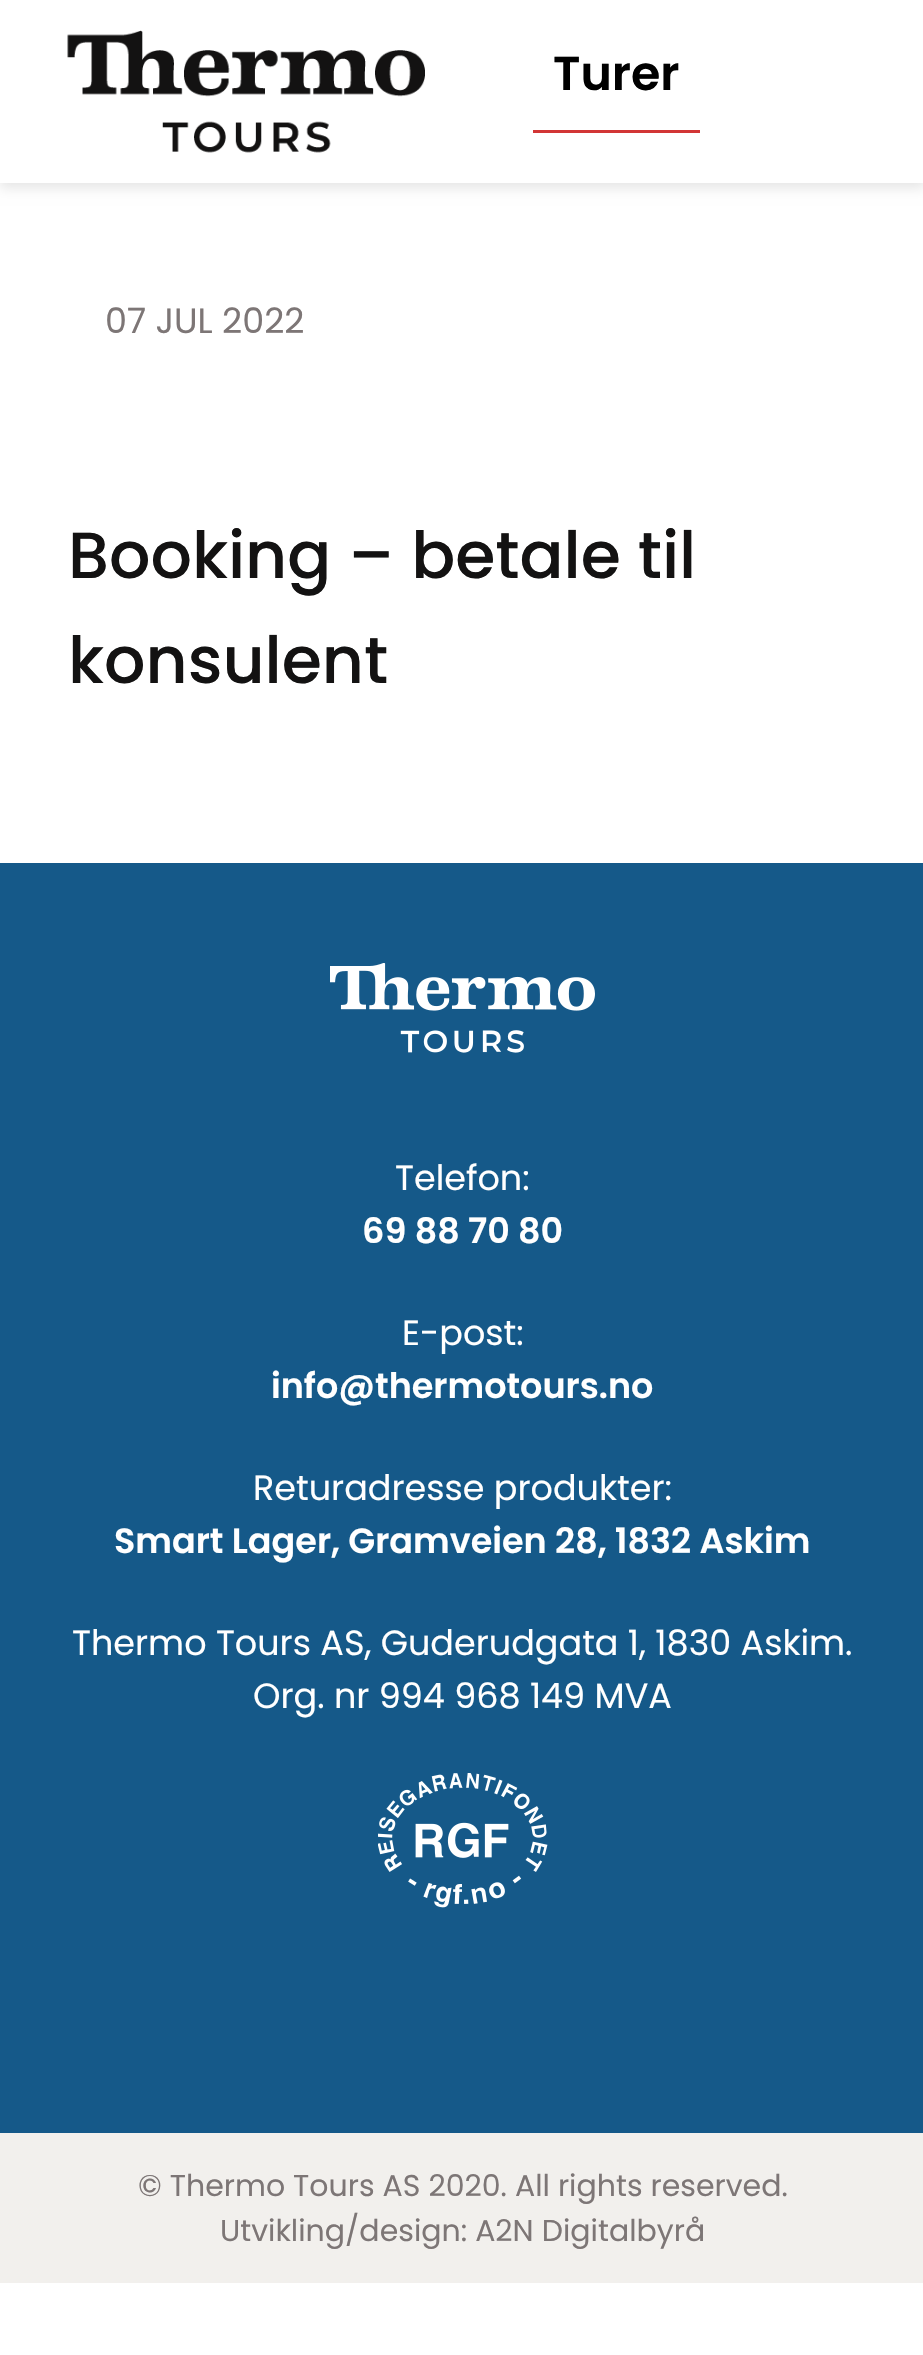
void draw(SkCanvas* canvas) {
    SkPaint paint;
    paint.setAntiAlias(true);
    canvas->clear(0xFFFFFFFF);
    paint.setColor(0x1A000000);
    paint.setMaskFilter(SkMaskFilter::MakeBlur(kNormal_SkBlurStyle, 6));
    canvas->drawRect(SkRect::MakeXYWH(0, 5, 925, 183), paint);
    paint.setMaskFilter(nullptr);
    paint.setColor(0xFFFFFFFF);
    canvas->drawRect(SkRect::MakeXYWH(0, 0, 923, 183), paint);
    canvas->drawImageRect(SkImages::DeferredFromEncodedData(SkData::MakeFromFileName("img1.png")), SkRect::MakeXYWH(67, 30, 358, 123), SkSamplingOptions());
    paint.setColor(0xFFD23535);
    canvas->drawRect(SkRect::MakeXYWH(533, 130, 167, 3), paint);
    SkFont font1(fontMgr->matchFamilyStyle("Poppins", SkFontStyle(600, SkFontStyle::kNormal_Width, SkFontStyle::kUpright_Slant)), 47.5f);
    font1.setSubpixel(true);
    paint.setColor(0xFF000000);
    canvas->drawString("Turer", 553, 90, font1, paint);
    SkFont font2(fontMgr->matchFamilyStyle("Poppins", SkFontStyle::Normal()), 35);
    font2.setSubpixel(true);
    paint.setColor(0xFF7D7676);
    canvas->drawString("07 JUL 2022", 105, 333, font2, paint);
    SkFont font3(fontMgr->matchFamilyStyle("Poppins", SkFontStyle(500, SkFontStyle::kNormal_Width, SkFontStyle::kUpright_Slant)), 65);
    font3.setSubpixel(true);
    paint.setColor(0xFF131212);
    canvas->drawString("Booking – betale til", 68, 578, font3, paint);
    canvas->drawString("konsulent", 68, 683, font3, paint);
    paint.setColor(0xFF155989);
    canvas->drawRect(SkRect::MakeXYWH(0, 863, 923, 1270), paint);
    canvas->drawImageRect(SkImages::DeferredFromEncodedData(SkData::MakeFromFileName("img2.png")), SkRect::MakeXYWH(330, 963, 265, 90), SkSamplingOptions());
    paint.setColor(0xFFFFFFFF);
    canvas->drawString("Telefon:", 395, 1190, font2, paint);
    SkFont font4(fontMgr->matchFamilyStyle("Poppins", SkFontStyle(600, SkFontStyle::kNormal_Width, SkFontStyle::kUpright_Slant)), 35);
    font4.setSubpixel(true);
    canvas->drawString("69 88 70 80", 362, 1243, font4, paint);
    canvas->drawString("E-post:", 402, 1345, font2, paint);
    canvas->drawString("info@thermotours.no", 271, 1398, font4, paint);
    canvas->drawString("Returadresse produkter:", 253, 1500, font2, paint);
    canvas->drawString("Smart Lager, Gramveien 28, 1832 Askim", 114, 1553, font4, paint);
    canvas->drawString("Thermo Tours AS, Guderudgata 1, 1830 Askim.", 72, 1655, font2, paint);
    canvas->drawString("Org. nr 994 968 149 MVA", 253, 1708, font2, paint);
    canvas->drawImageRect(SkImages::DeferredFromEncodedData(SkData::MakeFromFileName("img3.png")), SkRect::MakeXYWH(378, 1773, 170, 135), SkSamplingOptions());
    paint.setColor(0xFFF2F0ED);
    canvas->drawRect(SkRect::MakeXYWH(0, 2133, 923, 150), paint);
    SkFont font5(fontMgr->matchFamilyStyle("Poppins", SkFontStyle::Normal()), 30);
    font5.setSubpixel(true);
    paint.setColor(0xFF7D7676);
    canvas->drawString("© Thermo Tours AS 2020. All rights reserved.", 138, 2196, font5, paint);
    canvas->drawString("Utvikling/design: A2N Digitalbyrå", 220, 2241, font5, paint);
}
